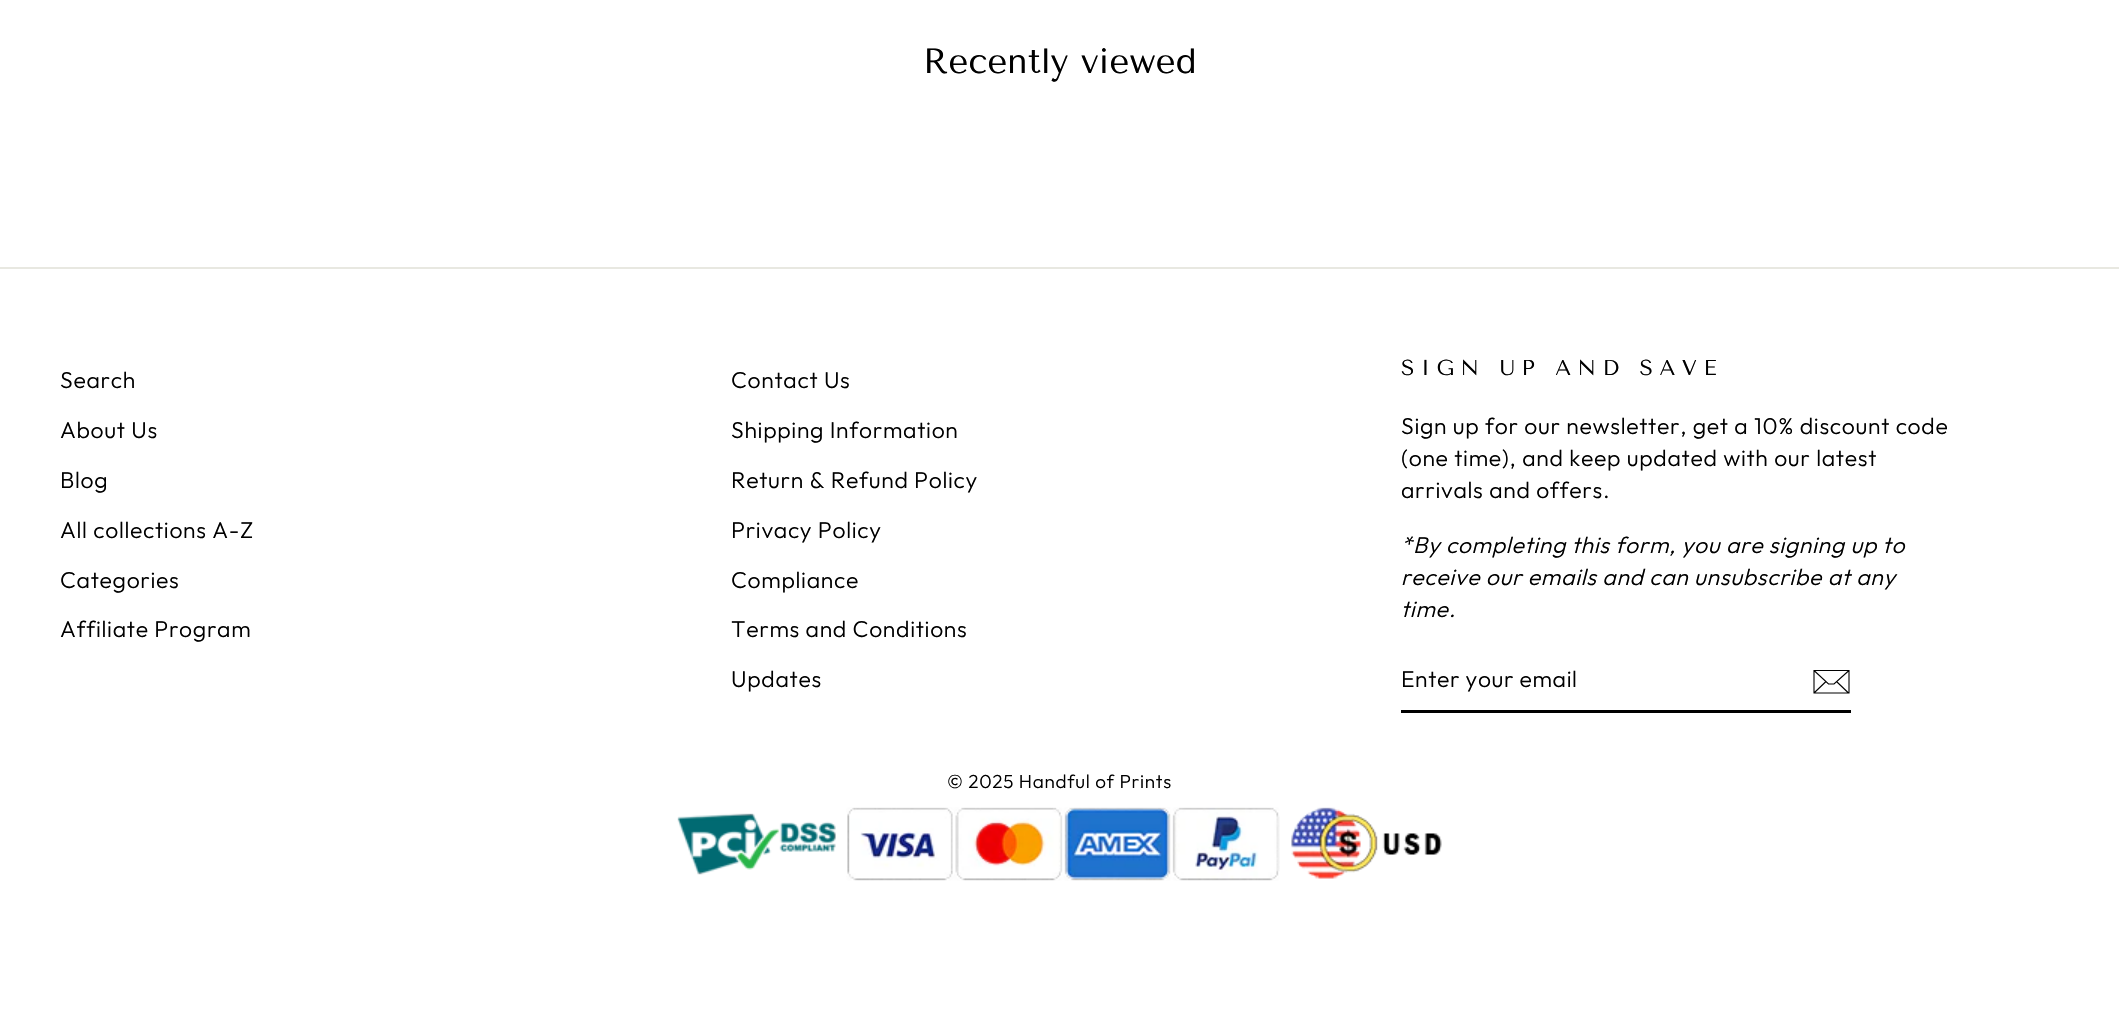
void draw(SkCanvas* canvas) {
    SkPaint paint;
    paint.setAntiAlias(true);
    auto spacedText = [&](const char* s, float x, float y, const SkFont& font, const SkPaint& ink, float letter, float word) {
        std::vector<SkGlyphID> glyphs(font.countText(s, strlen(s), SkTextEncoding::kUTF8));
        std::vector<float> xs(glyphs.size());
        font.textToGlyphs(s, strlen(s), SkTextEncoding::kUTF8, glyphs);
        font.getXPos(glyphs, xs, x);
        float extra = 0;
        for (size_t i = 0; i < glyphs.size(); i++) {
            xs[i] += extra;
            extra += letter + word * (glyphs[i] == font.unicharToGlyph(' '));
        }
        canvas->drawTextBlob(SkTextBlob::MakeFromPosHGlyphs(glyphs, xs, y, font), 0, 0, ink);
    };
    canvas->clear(0xFFFFFFFF);
    SkFont font1(fontMgr->matchFamilyStyle("Tenor Sans", SkFontStyle::Normal()), 35);
    font1.setSubpixel(true);
    paint.setColor(0xFF000000);
    canvas->drawString("Recently viewed", 923, 73, font1, paint);
    paint.setColor(0xFFE8E8E1);
    canvas->drawRect(SkRect::MakeXYWH(0, 267, 2119, 2), paint);
    SkFont font2(fontMgr->matchFamilyStyle("Outfit", SkFontStyle(300, SkFontStyle::kNormal_Width, SkFontStyle::kUpright_Slant)), 22.95f);
    font2.setSubpixel(true);
    paint.setColor(0xFF000000);
    spacedText("Search", 60, 388, font2, paint, 0.68f, 0);
    spacedText("About Us", 60, 438, font2, paint, 0.68f, 0);
    spacedText("Blog", 60, 488, font2, paint, 0.68f, 0);
    spacedText("All collections A-Z", 60, 538, font2, paint, 0.68f, 0);
    spacedText("Categories", 60, 588, font2, paint, 0.68f, 0);
    spacedText("Affiliate Program", 60, 637, font2, paint, 0.68f, 0);
    spacedText("Contact Us", 731, 388, font2, paint, 0.68f, 0);
    spacedText("Shipping Information", 731, 438, font2, paint, 0.68f, 0);
    spacedText("Return & Refund Policy", 731, 488, font2, paint, 0.68f, 0);
    spacedText("Privacy Policy", 731, 538, font2, paint, 0.68f, 0);
    spacedText("Compliance", 731, 588, font2, paint, 0.68f, 0);
    spacedText("Terms and Conditions", 731, 637, font2, paint, 0.68f, 0);
    spacedText("Updates", 731, 687, font2, paint, 0.68f, 0);
    SkFont font3(fontMgr->matchFamilyStyle("Tenor Sans", SkFontStyle::Normal()), 21.6f);
    font3.setSubpixel(true);
    spacedText("SIGN UP AND SAVE", 1401, 375, font3, paint, 6.5f, 0);
    spacedText("Sign up for our newsletter, get a 10% discount code", 1401, 434, font2, paint, 0.68f, 0);
    spacedText("(one time), and keep updated with our latest", 1401, 466, font2, paint, 0.68f, 0);
    spacedText("arrivals and offers.", 1401, 498, font2, paint, 0.68f, 0);
    SkFont font4(fontMgr->matchFamilyStyle("Outfit", SkFontStyle(300, SkFontStyle::kNormal_Width, SkFontStyle::kItalic_Slant)), 22.95f);
    font4.setSubpixel(true);
    spacedText("*By completing this form, you are signing up to", 1401, 553, font4, paint, 0.68f, 0);
    spacedText("receive our emails and can unsubscribe at any", 1401, 585, font4, paint, 0.68f, 0);
    spacedText("time.", 1401, 617, font4, paint, 0.68f, 0);
    canvas->drawRect(SkRect::MakeXYWH(1401, 710, 450, 3), paint);
    spacedText("Enter your email", 1401, 687, font2, paint, 0.6f, 0);
    paint.setStyle(SkPaint::kStroke_Style);
    paint.setStrokeWidth(1.1f);
    canvas->drawPath(SkPathBuilder().moveTo(1849, 693).lineTo(1814, 693).lineTo(1814, 670.5f).lineTo(1849, 670.5f).close().moveTo(1814, 670.5f).lineTo(1828.5f, 684).lineTo(1834, 684).lineTo(1849, 670.5f).moveTo(1826, 681.5f).lineTo(1814.5f, 692.5f).moveTo(1848.5f, 693).lineTo(1836.5f, 681.5f).detach(), paint);
    SkFont font5(fontMgr->matchFamilyStyle("Outfit", SkFontStyle(300, SkFontStyle::kNormal_Width, SkFontStyle::kUpright_Slant)), 18.9f);
    font5.setSubpixel(true);
    paint.setStyle(SkPaint::kFill_Style);
    spacedText("© 2025 Handful of Prints", 947, 788, font5, paint, 0.68f, 0);
    canvas->drawImageRect(SkImages::DeferredFromEncodedData(SkData::MakeFromFileName("img1.png")), SkRect::MakeXYWH(677, 807, 765, 74), SkSamplingOptions());
}
